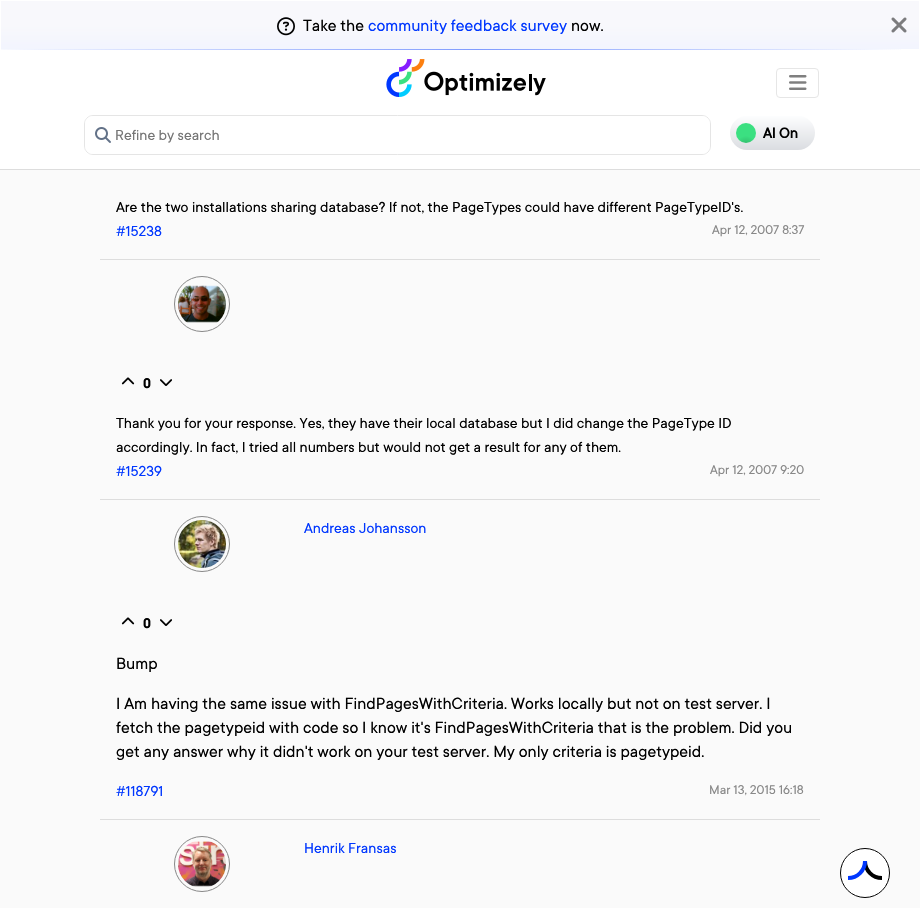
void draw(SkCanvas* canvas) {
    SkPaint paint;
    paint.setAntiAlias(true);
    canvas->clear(0xFFFAFAFA);
    paint.setColor(0xFFFFFFFF);
    canvas->drawRect(SkRect::MakeXYWH(0, 0, 920, 169), paint);
    canvas->drawImageRect(SkImages::DeferredFromEncodedData(SkData::MakeFromFileName("img1.png")), SkRect::MakeXYWH(1, 49, 900, 1), SkSamplingOptions());
    {
        const SkColor colors[] = {0xFFF8F8FC, 0xFFF0F3FF};
        const float stops[] = {0.42f, 1};
        const SkPoint ends[] = {{460, 0.9f}, {460, 59}};
        paint.setShader(SkGradientShader::MakeLinear(ends, colors, stops, 2, SkTileMode::kClamp));
        paint.setAlpha(255);
    }
    canvas->drawRect(SkRect::MakeXYWH(1, 1, 918, 48), paint);
    canvas->drawImageRect(SkImages::DeferredFromEncodedData(SkData::MakeFromFileName("img2.png")), SkRect::MakeXYWH(277, 17, 18, 19), SkSamplingOptions());
    SkFont font1(fontMgr->matchFamilyStyle("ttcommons", SkFontStyle::Normal()), 18);
    font1.setSubpixel(true);
    paint.setShader(nullptr);
    paint.setColor(0xFF000000);
    canvas->drawString("Take the", 303, 31, font1, paint);
    paint.setColor(0xFF0037FF);
    canvas->drawString("community feedback survey", 368, 31, font1, paint);
    paint.setColor(0xFF000000);
    canvas->drawString("now.", 571, 31, font1, paint);
    canvas->drawImageRect(SkImages::DeferredFromEncodedData(SkData::MakeFromFileName("img3.png")), SkRect::MakeXYWH(891, 17, 16, 16), SkSamplingOptions());
    paint.setColor(0xFFDDDDDD);
    canvas->drawRect(SkRect::MakeXYWH(0, 169, 920, 1), paint);
    canvas->drawImageRect(SkImages::DeferredFromEncodedData(SkData::MakeFromFileName("img4.png")), SkRect::MakeXYWH(386, 59, 160, 38), SkSamplingOptions());
    paint.setStyle(SkPaint::kStroke_Style);
    paint.setStrokeWidth(1);
    paint.setColor(0xFFE6E6E6);
    canvas->drawRoundRect(SkRect::MakeXYWH(776.5f, 68.5f, 42, 29), 3.5f, 3.5f, paint);
    canvas->drawImageRect(SkImages::DeferredFromEncodedData(SkData::MakeFromFileName("img5.png")), SkRect::MakeXYWH(789, 75, 18, 15), SkSamplingOptions());
    paint.setColor(0xFFE5E5E5);
    canvas->drawRoundRect(SkRect::MakeXYWH(84.5f, 115.5f, 626, 39), 8.5f, 8.5f, paint);
    paint.setStyle(SkPaint::kFill_Style);
    paint.setColor(0xFFFFFFFF);
    canvas->drawRoundRect(SkRect::MakeXYWH(85, 116, 625, 38), 8, 8, paint);
    canvas->drawImageRect(SkImages::DeferredFromEncodedData(SkData::MakeFromFileName("img6.png")), SkRect::MakeXYWH(95, 127, 16, 16), SkSamplingOptions());
    SkFont font2(fontMgr->matchFamilyStyle("ttcommons", SkFontStyle::Normal()), 16);
    font2.setSubpixel(true);
    paint.setColor(0xFF757575);
    canvas->drawString("Refine by search", 115, 140, font2, paint);
    {
        const SkColor colors[] = {0xFFFDFDFE, 0xFFDADDE1};
        const float stops[] = {0, 1};
        const SkPoint ends[] = {{773, 116}, {773, 150}};
        paint.setShader(SkGradientShader::MakeLinear(ends, colors, stops, 2, SkTileMode::kClamp));
        paint.setAlpha(255);
    }
    canvas->drawRoundRect(SkRect::MakeXYWH(730, 116, 85, 34), 17, 17, paint);
    {
        const SkColor colors[] = {0xFF2FB367, 0xFF3BE081};
        const float stops[] = {0, 0.44f};
        paint.setShader(SkGradientShader::MakeRadial({746, 146}, 23, colors, stops, 2, SkTileMode::kClamp));
        paint.setAlpha(255);
    }
    canvas->drawCircle(746, 133, 10, paint);
    SkFont font3(fontMgr->matchFamilyStyle("ttcommons", SkFontStyle::Bold()), 16);
    font3.setSubpixel(true);
    paint.setShader(nullptr);
    paint.setColor(0xFF000000);
    canvas->drawString("AI On", 763, 138, font3, paint);
    canvas->drawString("Are the two installations sharing database? If not, the PageTypes could have different PageTypeID's.", 116, 212, font2, paint);
    paint.setColor(0xFF0037FF);
    canvas->drawString("#15238", 116, 236, font2, paint);
    SkFont font4(fontMgr->matchFamilyStyle("ttcommons", SkFontStyle::Normal()), 14);
    font4.setSubpixel(true);
    paint.setColor(0xFF888888);
    canvas->drawString("Apr 12, 2007 8:37", 712, 234, font4, paint);
    paint.setColor(0xFFDDDDDD);
    canvas->drawRect(SkRect::MakeXYWH(100, 259, 720, 1), paint);
    paint.setStyle(SkPaint::kStroke_Style);
    paint.setColor(0xFF888888);
    canvas->drawCircle(202, 304, 27.5f, paint);
    canvas->drawImageRect(SkImages::DeferredFromEncodedData(SkData::MakeFromFileName("img7.png")), SkRect::MakeXYWH(178, 285, 48, 38), SkSamplingOptions());
    canvas->drawImageRect(SkImages::DeferredFromEncodedData(SkData::MakeFromFileName("img8.png")), SkRect::MakeXYWH(121, 377, 14, 8), SkSamplingOptions());
    SkFont font5(fontMgr->matchFamilyStyle("Barlow", SkFontStyle::Bold()), 14);
    font5.setSubpixel(true);
    paint.setStyle(SkPaint::kFill_Style);
    paint.setColor(0xFF000000);
    canvas->drawString("0", 143, 388, font5, paint);
    canvas->drawImageRect(SkImages::DeferredFromEncodedData(SkData::MakeFromFileName("img9.png")), SkRect::MakeXYWH(160, 379, 12, 7), SkSamplingOptions());
    canvas->drawString("Thank you for your response. Yes, they have their local database but I did change the PageType ID", 116, 428, font2, paint);
    canvas->drawString("accordingly. In fact, I tried all numbers but would not get a result for any of them.", 116, 452, font2, paint);
    paint.setColor(0xFF0037FF);
    canvas->drawString("#15239", 116, 476, font2, paint);
    paint.setColor(0xFF888888);
    canvas->drawString("Apr 12, 2007 9:20", 710, 474, font4, paint);
    paint.setColor(0xFFDDDDDD);
    canvas->drawRect(SkRect::MakeXYWH(100, 499, 720, 1), paint);
    paint.setStyle(SkPaint::kStroke_Style);
    paint.setColor(0xFF888888);
    canvas->drawCircle(202, 544, 27.5f, paint);
    canvas->drawImageRect(SkImages::DeferredFromEncodedData(SkData::MakeFromFileName("img10.png")), SkRect::MakeXYWH(178, 520, 48, 48), SkSamplingOptions());
    paint.setStyle(SkPaint::kFill_Style);
    paint.setColor(0xFF0037FF);
    canvas->drawString("Andreas Johansson", 304, 533, font2, paint);
    canvas->drawImageRect(SkImages::DeferredFromEncodedData(SkData::MakeFromFileName("img8.png")), SkRect::MakeXYWH(121, 617, 14, 8), SkSamplingOptions());
    paint.setColor(0xFF000000);
    canvas->drawString("0", 143, 628, font5, paint);
    canvas->drawImageRect(SkImages::DeferredFromEncodedData(SkData::MakeFromFileName("img9.png")), SkRect::MakeXYWH(160, 619, 12, 7), SkSamplingOptions());
    canvas->drawString("Bump", 116, 669, font1, paint);
    canvas->drawString("I Am having the same issue with FindPagesWithCriteria. Works locally but not on test server. I", 116, 709, font1, paint);
    canvas->drawString("fetch the pagetypeid with code so I know it's FindPagesWithCriteria that is the problem. Did you", 116, 733, font1, paint);
    canvas->drawString("get any answer why it didn't work on your test server. My only criteria is pagetypeid.", 116, 757, font1, paint);
    paint.setColor(0xFF0037FF);
    canvas->drawString("#118791", 116, 796, font2, paint);
    paint.setColor(0xFF888888);
    canvas->drawString("Mar 13, 2015 16:18", 709, 794, font4, paint);
    paint.setColor(0xFFDDDDDD);
    canvas->drawRect(SkRect::MakeXYWH(100, 819, 720, 1), paint);
    paint.setStyle(SkPaint::kStroke_Style);
    paint.setColor(0xFF888888);
    canvas->drawCircle(202, 864, 27.5f, paint);
    canvas->drawImageRect(SkImages::DeferredFromEncodedData(SkData::MakeFromFileName("img11.png")), SkRect::MakeXYWH(178, 841, 48, 46), SkSamplingOptions());
    paint.setStyle(SkPaint::kFill_Style);
    paint.setColor(0xFF0037FF);
    canvas->drawString("Henrik Fransas", 304, 853, font2, paint);
    paint.setColor(0xFFFFFFFF);
    canvas->drawCircle(865, 873, 25, paint);
    paint.setStyle(SkPaint::kStroke_Style);
    paint.setStrokeWidth(4);
    paint.setColor(0xFF000000);
    canvas->drawPath(SkPathBuilder().moveTo(882, 878).cubicTo(872.5f, 878, 865, 870.5f, 865, 861).detach(), paint);
    paint.setColor(0xFF0037FF);
    canvas->drawPath(SkPathBuilder().moveTo(865, 861).cubicTo(865, 870.5f, 857.5f, 878, 848, 878).detach(), paint);
    paint.setStrokeWidth(1);
    paint.setColor(0xFF000000);
    canvas->drawCircle(865, 873, 24.5f, paint);
}
